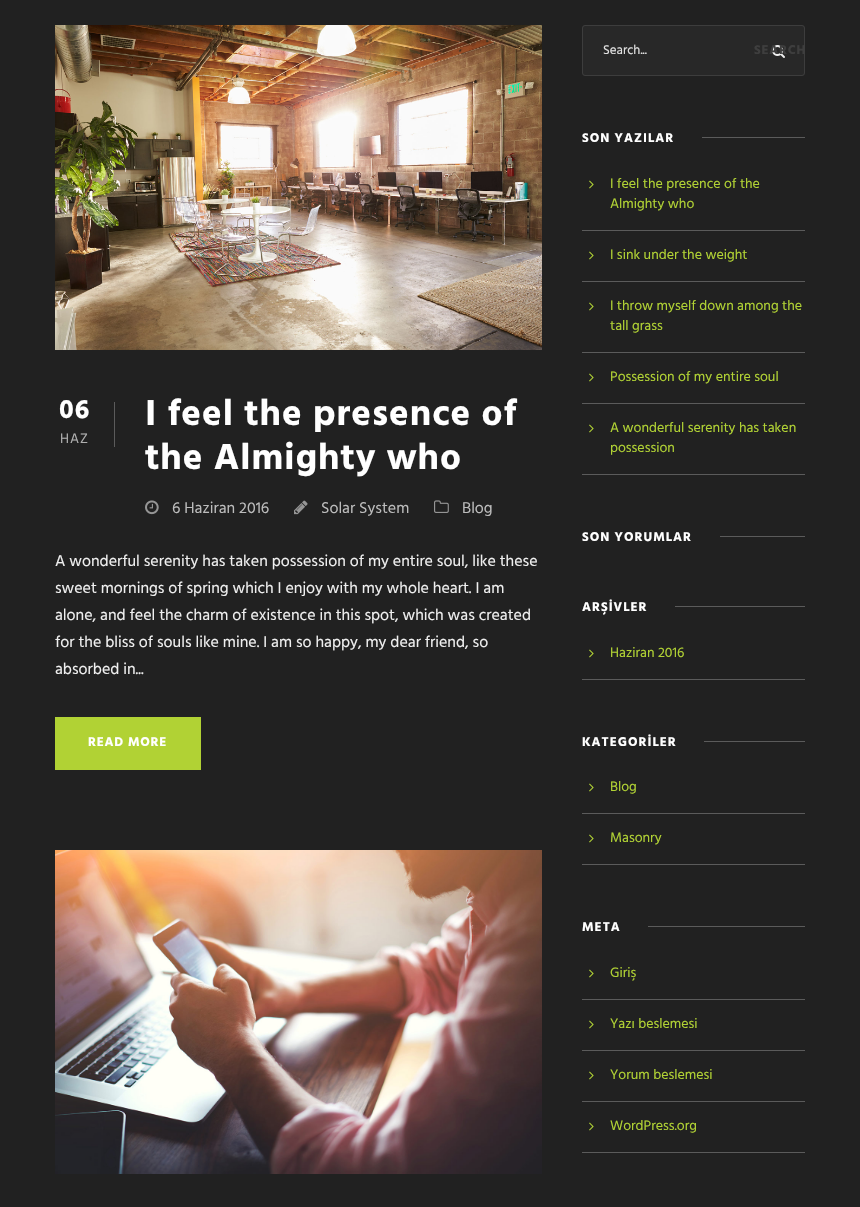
void draw(SkCanvas* canvas) {
    SkPaint paint;
    paint.setAntiAlias(true);
    auto spacedText = [&](const char* s, float x, float y, const SkFont& font, const SkPaint& ink, float letter, float word) {
        std::vector<SkGlyphID> glyphs(font.countText(s, strlen(s), SkTextEncoding::kUTF8));
        std::vector<float> xs(glyphs.size());
        font.textToGlyphs(s, strlen(s), SkTextEncoding::kUTF8, glyphs);
        font.getXPos(glyphs, xs, x);
        float extra = 0;
        for (size_t i = 0; i < glyphs.size(); i++) {
            xs[i] += extra;
            extra += letter + word * (glyphs[i] == font.unicharToGlyph(' '));
        }
        canvas->drawTextBlob(SkTextBlob::MakeFromPosHGlyphs(glyphs, xs, y, font), 0, 0, ink);
    };
    canvas->clear(0xFF212121);
    canvas->drawImageRect(SkImages::DeferredFromEncodedData(SkData::MakeFromFileName("img1.png")), SkRect::MakeXYWH(55, 25, 487, 325), SkSamplingOptions());
    paint.setColor(0xFF5B5B5B);
    canvas->drawRect(SkRect::MakeXYWH(114, 402, 1, 45), paint);
    SkFont font1(fontMgr->matchFamilyStyle("Hind", SkFontStyle::Bold()), 27);
    font1.setSubpixel(true);
    paint.setColor(0xFFFFFFFF);
    spacedText("06", 59, 418, font1, paint, 1, 0);
    SkFont font2(fontMgr->matchFamilyStyle("Hind", SkFontStyle::Normal()), 14);
    font2.setSubpixel(true);
    paint.setColor(0xFFAFAFAF);
    spacedText("HAZ", 60, 443, font2, paint, 1, 0);
    SkFont font3(fontMgr->matchFamilyStyle("Hind", SkFontStyle::Bold()), 37);
    font3.setSubpixel(true);
    paint.setColor(0xFFFFFFFF);
    spacedText("I feel the presence of", 145, 425, font3, paint, 1, 0);
    spacedText("the Almighty who", 145, 469, font3, paint, 1, 0);
    canvas->drawImageRect(SkImages::DeferredFromEncodedData(SkData::MakeFromFileName("img2.png")), SkRect::MakeXYWH(145, 500, 14, 15), SkSamplingOptions());
    SkFont font4(fontMgr->matchFamilyStyle("Hind", SkFontStyle::Normal()), 16);
    font4.setSubpixel(true);
    paint.setColor(0xFFBCBCBC);
    canvas->drawString("6 Haziran 2016", 172, 513, font4, paint);
    canvas->drawImageRect(SkImages::DeferredFromEncodedData(SkData::MakeFromFileName("img3.png")), SkRect::MakeXYWH(294, 500, 14, 15), SkSamplingOptions());
    canvas->drawString("Solar System", 321, 513, font4, paint);
    canvas->drawImageRect(SkImages::DeferredFromEncodedData(SkData::MakeFromFileName("img4.png")), SkRect::MakeXYWH(434, 500, 15, 13), SkSamplingOptions());
    canvas->drawString("Blog", 462, 513, font4, paint);
    paint.setColor(0xFFEFEFEF);
    canvas->drawString("A wonderful serenity has taken possession of my entire soul, like these", 55, 566, font4, paint);
    canvas->drawString("sweet mornings of spring which I enjoy with my whole heart. I am", 55, 593, font4, paint);
    canvas->drawString("alone, and feel the charm of existence in this spot, which was created", 55, 620, font4, paint);
    canvas->drawString("for the bliss of souls like mine. I am so happy, my dear friend, so", 55, 647, font4, paint);
    canvas->drawString("absorbed in...", 55, 674, font4, paint);
    paint.setColor(0xFFB1D234);
    canvas->drawRect(SkRect::MakeXYWH(55, 717, 146, 53), paint);
    SkFont font5(fontMgr->matchFamilyStyle("Hind", SkFontStyle::Bold()), 13);
    font5.setSubpixel(true);
    paint.setColor(0xFFFFFFFF);
    spacedText("READ MORE", 88, 746, font5, paint, 0.75f, 0);
    canvas->drawImageRect(SkImages::DeferredFromEncodedData(SkData::MakeFromFileName("img5.png")), SkRect::MakeXYWH(55, 850, 487, 324), SkSamplingOptions());
    paint.setColor(0xFF282828);
    canvas->drawRoundRect(SkRect::MakeXYWH(582.5f, 25.5f, 222, 50), 2.5f, 2.5f, paint);
    paint.setStyle(SkPaint::kStroke_Style);
    paint.setStrokeWidth(1);
    paint.setColor(0xFF3D3D3D);
    canvas->drawRoundRect(SkRect::MakeXYWH(582.5f, 25.5f, 222, 50), 2.5f, 2.5f, paint);
    SkFont font6(fontMgr->matchFamilyStyle("Hind", SkFontStyle::Normal()), 13);
    font6.setSubpixel(true);
    paint.setStyle(SkPaint::kFill_Style);
    paint.setColor(0xFFE0E0E0);
    canvas->drawString("Search...", 603, 54, font6, paint);
    canvas->drawImageRect(SkImages::DeferredFromEncodedData(SkData::MakeFromFileName("img6.png")), SkRect::MakeXYWH(772, 45, 13, 13), SkSamplingOptions());
    paint.setColor(0xFF3E3E3E);
    spacedText("SEARCH", 754, 54, font5, paint, 0.75f, 0);
    paint.setColor(0xFFFFFFFF);
    spacedText("SON YAZILAR", 582, 142, font5, paint, 1, 0);
    paint.setColor(0xFF5B5B5B);
    canvas->drawRect(SkRect::MakeXYWH(702, 137, 103, 1), paint);
    canvas->drawRect(SkRect::MakeXYWH(582, 230, 223, 1), paint);
    canvas->drawImageRect(SkImages::DeferredFromEncodedData(SkData::MakeFromFileName("img7.png")), SkRect::MakeXYWH(589, 180, 5, 9), SkSamplingOptions());
    paint.setColor(0xFFB1D234);
    canvas->drawString("I feel the presence of the", 610, 188, font2, paint);
    canvas->drawString("Almighty who", 610, 208, font2, paint);
    paint.setColor(0xFF5B5B5B);
    canvas->drawRect(SkRect::MakeXYWH(582, 281, 223, 1), paint);
    canvas->drawImageRect(SkImages::DeferredFromEncodedData(SkData::MakeFromFileName("img7.png")), SkRect::MakeXYWH(589, 251, 5, 9), SkSamplingOptions());
    paint.setColor(0xFFB1D234);
    canvas->drawString("I sink under the weight", 610, 259, font2, paint);
    paint.setColor(0xFF5B5B5B);
    canvas->drawRect(SkRect::MakeXYWH(582, 352, 223, 1), paint);
    canvas->drawImageRect(SkImages::DeferredFromEncodedData(SkData::MakeFromFileName("img7.png")), SkRect::MakeXYWH(589, 302, 5, 9), SkSamplingOptions());
    paint.setColor(0xFFB1D234);
    canvas->drawString("I throw myself down among the", 610, 310, font2, paint);
    canvas->drawString("tall grass", 610, 330, font2, paint);
    paint.setColor(0xFF5B5B5B);
    canvas->drawRect(SkRect::MakeXYWH(582, 403, 223, 1), paint);
    canvas->drawImageRect(SkImages::DeferredFromEncodedData(SkData::MakeFromFileName("img7.png")), SkRect::MakeXYWH(589, 373, 5, 9), SkSamplingOptions());
    paint.setColor(0xFFB1D234);
    canvas->drawString("Possession of my entire soul", 610, 381, font2, paint);
    paint.setColor(0xFF5B5B5B);
    canvas->drawRect(SkRect::MakeXYWH(582, 474, 223, 1), paint);
    canvas->drawImageRect(SkImages::DeferredFromEncodedData(SkData::MakeFromFileName("img7.png")), SkRect::MakeXYWH(589, 424, 5, 9), SkSamplingOptions());
    paint.setColor(0xFFB1D234);
    canvas->drawString("A wonderful serenity has taken", 610, 432, font2, paint);
    canvas->drawString("possession", 610, 452, font2, paint);
    paint.setColor(0xFFFFFFFF);
    spacedText("SON YORUMLAR", 582, 541, font5, paint, 1, 0);
    paint.setColor(0xFF5B5B5B);
    canvas->drawRect(SkRect::MakeXYWH(720, 536, 85, 1), paint);
    paint.setColor(0xFFFFFFFF);
    spacedText("ARŞİVLER", 582, 611, font5, paint, 1, 0);
    paint.setColor(0xFF5B5B5B);
    canvas->drawRect(SkRect::MakeXYWH(675, 606, 130, 1), paint);
    canvas->drawRect(SkRect::MakeXYWH(582, 679, 223, 1), paint);
    canvas->drawImageRect(SkImages::DeferredFromEncodedData(SkData::MakeFromFileName("img7.png")), SkRect::MakeXYWH(589, 649, 5, 9), SkSamplingOptions());
    paint.setColor(0xFFB1D234);
    canvas->drawString("Haziran 2016", 610, 657, font2, paint);
    paint.setColor(0xFFFFFFFF);
    spacedText("KATEGORİLER", 582, 746, font5, paint, 1, 0);
    paint.setColor(0xFF5B5B5B);
    canvas->drawRect(SkRect::MakeXYWH(704, 741, 101, 1), paint);
    canvas->drawRect(SkRect::MakeXYWH(582, 813, 223, 1), paint);
    canvas->drawImageRect(SkImages::DeferredFromEncodedData(SkData::MakeFromFileName("img7.png")), SkRect::MakeXYWH(589, 783, 5, 9), SkSamplingOptions());
    paint.setColor(0xFFB1D234);
    canvas->drawString("Blog", 610, 791, font2, paint);
    paint.setColor(0xFF5B5B5B);
    canvas->drawRect(SkRect::MakeXYWH(582, 864, 223, 1), paint);
    canvas->drawImageRect(SkImages::DeferredFromEncodedData(SkData::MakeFromFileName("img7.png")), SkRect::MakeXYWH(589, 834, 5, 9), SkSamplingOptions());
    paint.setColor(0xFFB1D234);
    canvas->drawString("Masonry", 610, 842, font2, paint);
    paint.setColor(0xFFFFFFFF);
    spacedText("META", 582, 931, font5, paint, 1, 0);
    paint.setColor(0xFF5B5B5B);
    canvas->drawRect(SkRect::MakeXYWH(648, 926, 157, 1), paint);
    canvas->drawRect(SkRect::MakeXYWH(582, 999, 223, 1), paint);
    canvas->drawImageRect(SkImages::DeferredFromEncodedData(SkData::MakeFromFileName("img7.png")), SkRect::MakeXYWH(589, 969, 5, 9), SkSamplingOptions());
    paint.setColor(0xFFB1D234);
    canvas->drawString("Giriş", 610, 977, font2, paint);
    paint.setColor(0xFF5B5B5B);
    canvas->drawRect(SkRect::MakeXYWH(582, 1050, 223, 1), paint);
    canvas->drawImageRect(SkImages::DeferredFromEncodedData(SkData::MakeFromFileName("img7.png")), SkRect::MakeXYWH(589, 1020, 5, 9), SkSamplingOptions());
    paint.setColor(0xFFB1D234);
    canvas->drawString("Yazı beslemesi", 610, 1028, font2, paint);
    paint.setColor(0xFF5B5B5B);
    canvas->drawRect(SkRect::MakeXYWH(582, 1101, 223, 1), paint);
    canvas->drawImageRect(SkImages::DeferredFromEncodedData(SkData::MakeFromFileName("img7.png")), SkRect::MakeXYWH(589, 1071, 5, 9), SkSamplingOptions());
    paint.setColor(0xFFB1D234);
    canvas->drawString("Yorum beslemesi", 610, 1079, font2, paint);
    paint.setColor(0xFF5B5B5B);
    canvas->drawRect(SkRect::MakeXYWH(582, 1152, 223, 1), paint);
    canvas->drawImageRect(SkImages::DeferredFromEncodedData(SkData::MakeFromFileName("img7.png")), SkRect::MakeXYWH(589, 1122, 5, 9), SkSamplingOptions());
    paint.setColor(0xFFB1D234);
    canvas->drawString("WordPress.org", 610, 1130, font2, paint);
}
